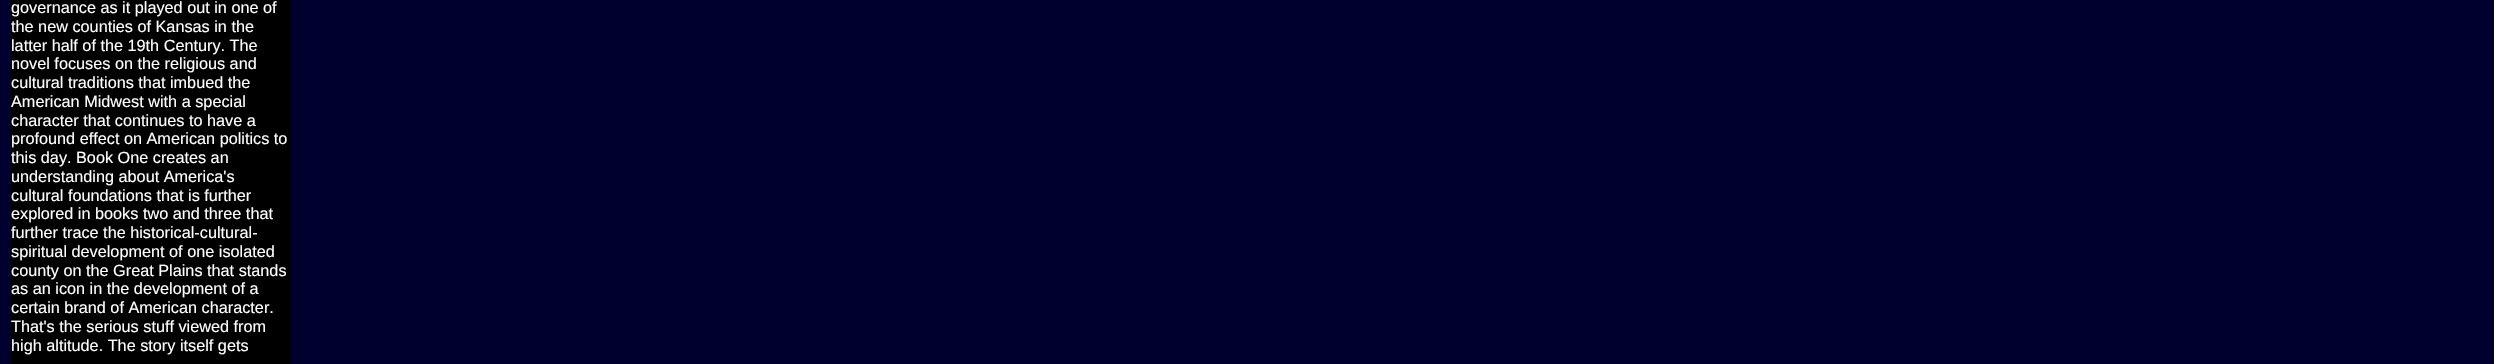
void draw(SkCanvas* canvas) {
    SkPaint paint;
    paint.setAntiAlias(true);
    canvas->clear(0xFF00002F);
    paint.setColor(0xFF000000);
    canvas->drawRect(SkRect::MakeXYWH(11, 0, 280, 364), paint);
    SkFont font1(fontMgr->matchFamilyStyle("Liberation Sans", SkFontStyle::Normal()), 16.25f);
    font1.setSubpixel(true);
    paint.setColor(0xFFFFFFFF);
    canvas->drawString("governance as it played out in one of", 11, 13, font1, paint);
    canvas->drawString("the new counties of Kansas in the", 11, 32, font1, paint);
    canvas->drawString("latter half of the 19th Century. The", 11, 51, font1, paint);
    canvas->drawString("novel focuses on the religious and", 11, 69, font1, paint);
    canvas->drawString("cultural traditions that imbued the", 11, 88, font1, paint);
    canvas->drawString("American Midwest with a special", 11, 107, font1, paint);
    canvas->drawString("character that continues to have a", 11, 126, font1, paint);
    canvas->drawString("profound effect on American politics to", 11, 144, font1, paint);
    canvas->drawString("this day. Book One creates an", 11, 163, font1, paint);
    canvas->drawString("understanding about America's", 11, 182, font1, paint);
    canvas->drawString("cultural foundations that is further", 11, 201, font1, paint);
    canvas->drawString("explored in books two and three that", 11, 219, font1, paint);
    canvas->drawString("further trace the historical-cultural-", 11, 238, font1, paint);
    canvas->drawString("spiritual development of one isolated", 11, 257, font1, paint);
    canvas->drawString("county on the Great Plains that stands", 11, 276, font1, paint);
    canvas->drawString("as an icon in the development of a", 11, 294, font1, paint);
    canvas->drawString("certain brand of American character.", 11, 313, font1, paint);
    canvas->drawString("That's the serious stuff viewed from", 11, 332, font1, paint);
    canvas->drawString("high altitude. The story itself gets", 11, 351, font1, paint);
}
